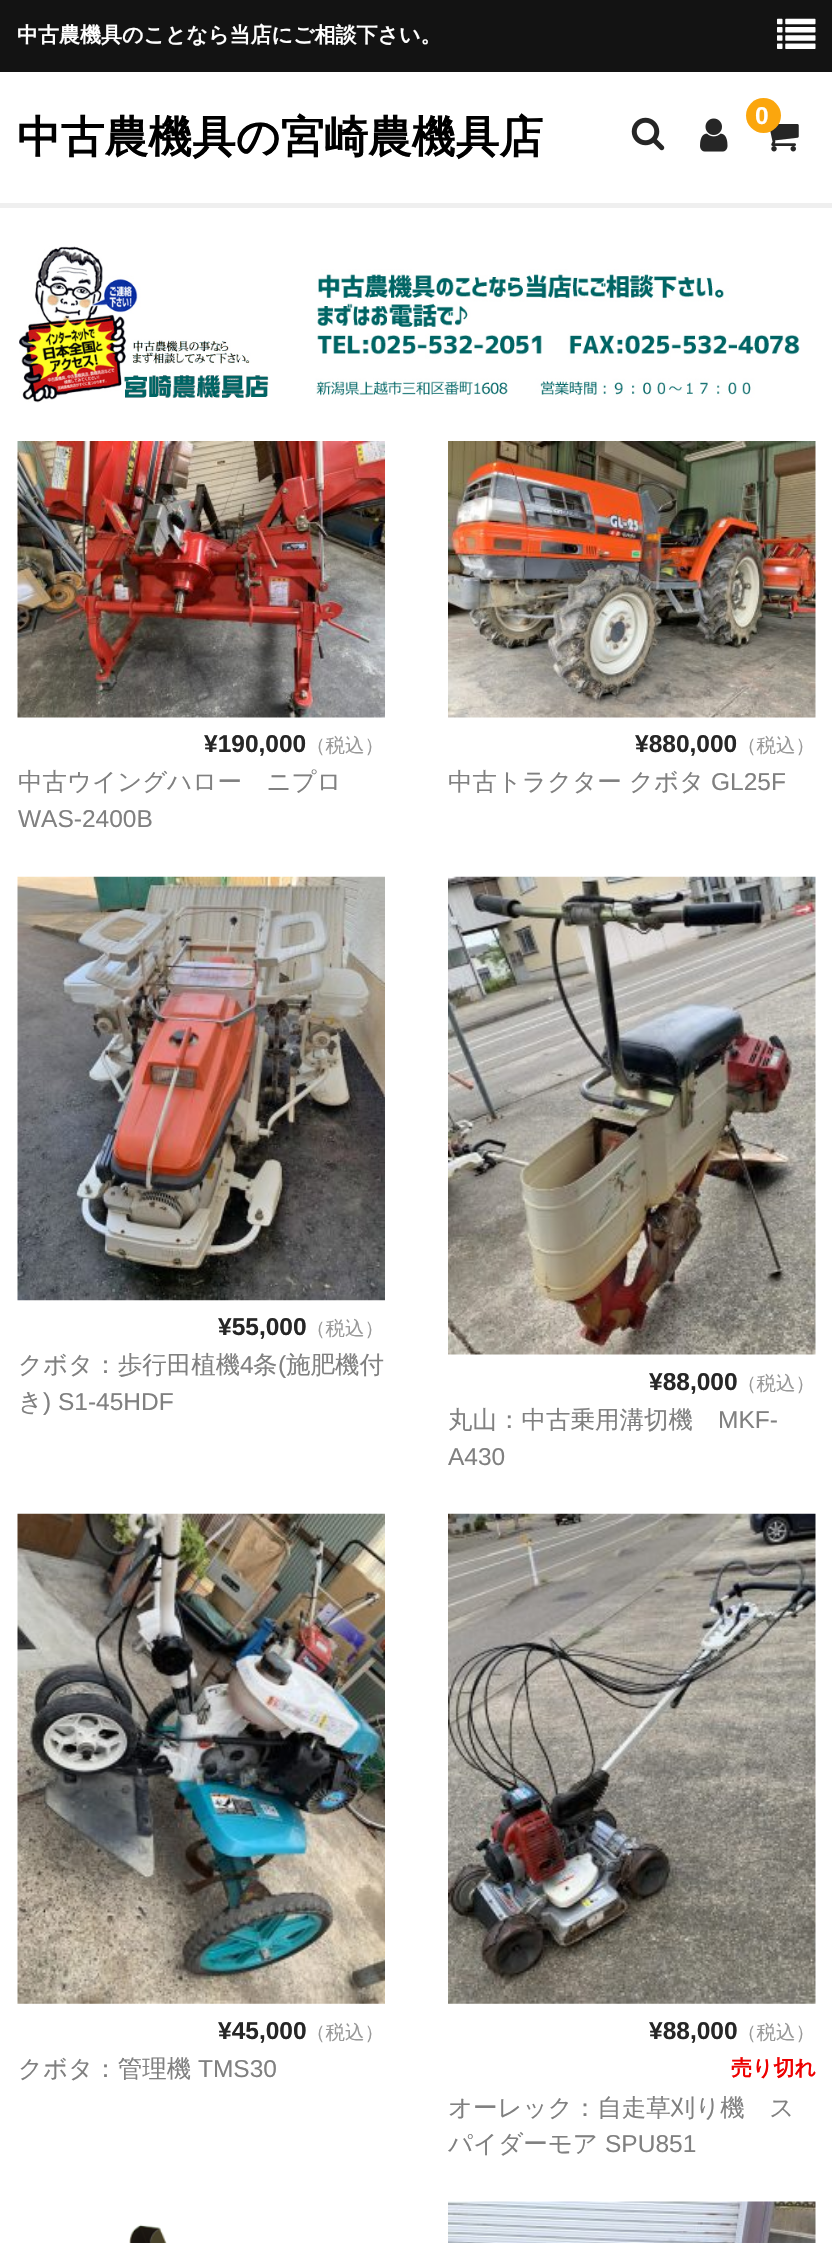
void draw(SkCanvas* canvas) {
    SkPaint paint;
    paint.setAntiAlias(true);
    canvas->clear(0xFFFFFFFF);
    paint.setColor(0xFFEFEFEF);
    canvas->drawRect(SkRect::MakeXYWH(0, 203, 832, 5), paint);
    paint.setColor(0xFF131313);
    canvas->drawRect(SkRect::MakeXYWH(0, 0, 832, 72), paint);
    SkFont font1(fontMgr->matchFamilyStyle("WenQuanYi Zen Hei", SkFontStyle::Bold()), 21);
    font1.setSubpixel(true);
    paint.setColor(0xFFFFFFFF);
    canvas->drawString("中古農機具のことなら当店にご相談下さい。", 17, 42, font1, paint);
    SkFont font2(fontMgr->matchFamilyStyle("WenQuanYi Zen Hei", SkFontStyle::Bold()), 43.75f);
    font2.setSubpixel(true);
    paint.setColor(0xFF000000);
    canvas->drawString("中古農機具の宮崎農機具店", 17, 152, font2, paint);
    canvas->drawImageRect(SkImages::DeferredFromEncodedData(SkData::MakeFromFileName("img1.png")), SkRect::MakeXYWH(631, 117, 34, 34), SkSamplingOptions());
    canvas->drawImageRect(SkImages::DeferredFromEncodedData(SkData::MakeFromFileName("img2.png")), SkRect::MakeXYWH(700, 118, 28, 34), SkSamplingOptions());
    canvas->drawImageRect(SkImages::DeferredFromEncodedData(SkData::MakeFromFileName("img3.png")), SkRect::MakeXYWH(770, 124, 29, 28), SkSamplingOptions());
    paint.setColor(0xFFFBA60D);
    canvas->drawCircle(763.5f, 115.5f, 17.5f, paint);
    SkFont font3(fontMgr->matchFamilyStyle("Liberation Sans", SkFontStyle::Bold()), 24.5f);
    font3.setSubpixel(true);
    paint.setColor(0xFFFFFFFF);
    canvas->drawString("0", 755, 124, font3, paint);
    canvas->drawImageRect(SkImages::DeferredFromEncodedData(SkData::MakeFromFileName("img4.png")), SkRect::MakeXYWH(777, 18, 39, 31), SkSamplingOptions());
    canvas->drawImageRect(SkImages::DeferredFromEncodedData(SkData::MakeFromFileName("img5.png")), SkRect::MakeXYWH(19, 246, 781, 157), SkSamplingOptions());
    canvas->drawImageRect(SkImages::DeferredFromEncodedData(SkData::MakeFromFileName("img6.png")), SkRect::MakeXYWH(17, 441, 368, 277), SkSamplingOptions());
    paint.setColor(0xFF262626);
    canvas->drawString("¥190,000", 204, 752, font3, paint);
    SkFont font4(fontMgr->matchFamilyStyle("WenQuanYi Zen Hei", SkFontStyle(500, SkFontStyle::kNormal_Width, SkFontStyle::kUpright_Slant)), 19.5f);
    font4.setSubpixel(true);
    paint.setColor(0xFF999999);
    canvas->drawString("（税込）", 306, 752, font4, paint);
    SkFont font5(fontMgr->matchFamilyStyle("WenQuanYi Zen Hei", SkFontStyle(500, SkFontStyle::kNormal_Width, SkFontStyle::kUpright_Slant)), 24.5f);
    font5.setSubpixel(true);
    paint.setColor(0xFF808080);
    canvas->drawString("中古ウイングハロー　ニプロ", 18, 790, font5, paint);
    SkFont font6(fontMgr->matchFamilyStyle("Liberation Sans", SkFontStyle::Normal()), 24.5f);
    font6.setSubpixel(true);
    canvas->drawString("WAS-2400B", 18, 827, font6, paint);
    canvas->drawImageRect(SkImages::DeferredFromEncodedData(SkData::MakeFromFileName("img7.png")), SkRect::MakeXYWH(448, 441, 368, 277), SkSamplingOptions());
    paint.setColor(0xFF262626);
    canvas->drawString("¥880,000", 635, 752, font3, paint);
    paint.setColor(0xFF999999);
    canvas->drawString("（税込）", 737, 752, font4, paint);
    paint.setColor(0xFF808080);
    canvas->drawString("中古トラクター", 448, 790, font5, paint);
    canvas->drawString("クボタ", 629, 790, font5, paint);
    canvas->drawString("GL25F", 711, 790, font6, paint);
    canvas->drawImageRect(SkImages::DeferredFromEncodedData(SkData::MakeFromFileName("img8.png")), SkRect::MakeXYWH(17, 876, 368, 425), SkSamplingOptions());
    paint.setColor(0xFF262626);
    canvas->drawString("¥55,000", 218, 1335, font3, paint);
    paint.setColor(0xFF999999);
    canvas->drawString("（税込）", 306, 1335, font4, paint);
    paint.setColor(0xFF808080);
    canvas->drawString("クボタ：歩行田植機", 18, 1373, font5, paint);
    canvas->drawString("4", 240, 1373, font6, paint);
    canvas->drawString("条", 253, 1373, font5, paint);
    canvas->drawString("(", 278, 1373, font6, paint);
    canvas->drawString("施肥機付", 286, 1373, font5, paint);
    canvas->drawString("き", 18, 1410, font5, paint);
    canvas->drawString(") S1-45HDF", 43, 1410, font6, paint);
    canvas->drawImageRect(SkImages::DeferredFromEncodedData(SkData::MakeFromFileName("img9.png")), SkRect::MakeXYWH(448, 876, 368, 479), SkSamplingOptions());
    paint.setColor(0xFF262626);
    canvas->drawString("¥88,000", 649, 1390, font3, paint);
    paint.setColor(0xFF999999);
    canvas->drawString("（税込）", 737, 1390, font4, paint);
    paint.setColor(0xFF808080);
    canvas->drawString("丸山：中古乗用溝切機", 448, 1428, font5, paint);
    canvas->drawString("MKF-", 718, 1428, font6, paint);
    canvas->drawString("A430", 448, 1465, font6, paint);
    canvas->drawImageRect(SkImages::DeferredFromEncodedData(SkData::MakeFromFileName("img10.png")), SkRect::MakeXYWH(17, 1513, 368, 491), SkSamplingOptions());
    paint.setColor(0xFF262626);
    canvas->drawString("¥45,000", 218, 2039, font3, paint);
    paint.setColor(0xFF999999);
    canvas->drawString("（税込）", 306, 2039, font4, paint);
    paint.setColor(0xFF808080);
    canvas->drawString("クボタ：管理機", 18, 2077, font5, paint);
    canvas->drawString("TMS30", 198, 2077, font6, paint);
    canvas->drawImageRect(SkImages::DeferredFromEncodedData(SkData::MakeFromFileName("img11.png")), SkRect::MakeXYWH(448, 1513, 368, 491), SkSamplingOptions());
    paint.setColor(0xFF262626);
    canvas->drawString("¥88,000", 649, 2039, font3, paint);
    paint.setColor(0xFF999999);
    canvas->drawString("（税込）", 737, 2039, font4, paint);
    paint.setColor(0xFFEE0000);
    canvas->drawString("売り切れ", 731, 2075, font1, paint);
    paint.setColor(0xFF808080);
    canvas->drawString("オーレック：自走草刈り機　ス", 448, 2116, font5, paint);
    canvas->drawString("パイダーモア", 448, 2152, font5, paint);
    canvas->drawString("SPU851", 605, 2152, font6, paint);
    canvas->drawImageRect(SkImages::DeferredFromEncodedData(SkData::MakeFromFileName("img12.png")), SkRect::MakeXYWH(129, 2224, 38, 19), SkSamplingOptions());
    canvas->drawImageRect(SkImages::DeferredFromEncodedData(SkData::MakeFromFileName("img13.png")), SkRect::MakeXYWH(448, 2201, 368, 42), SkSamplingOptions());
}
